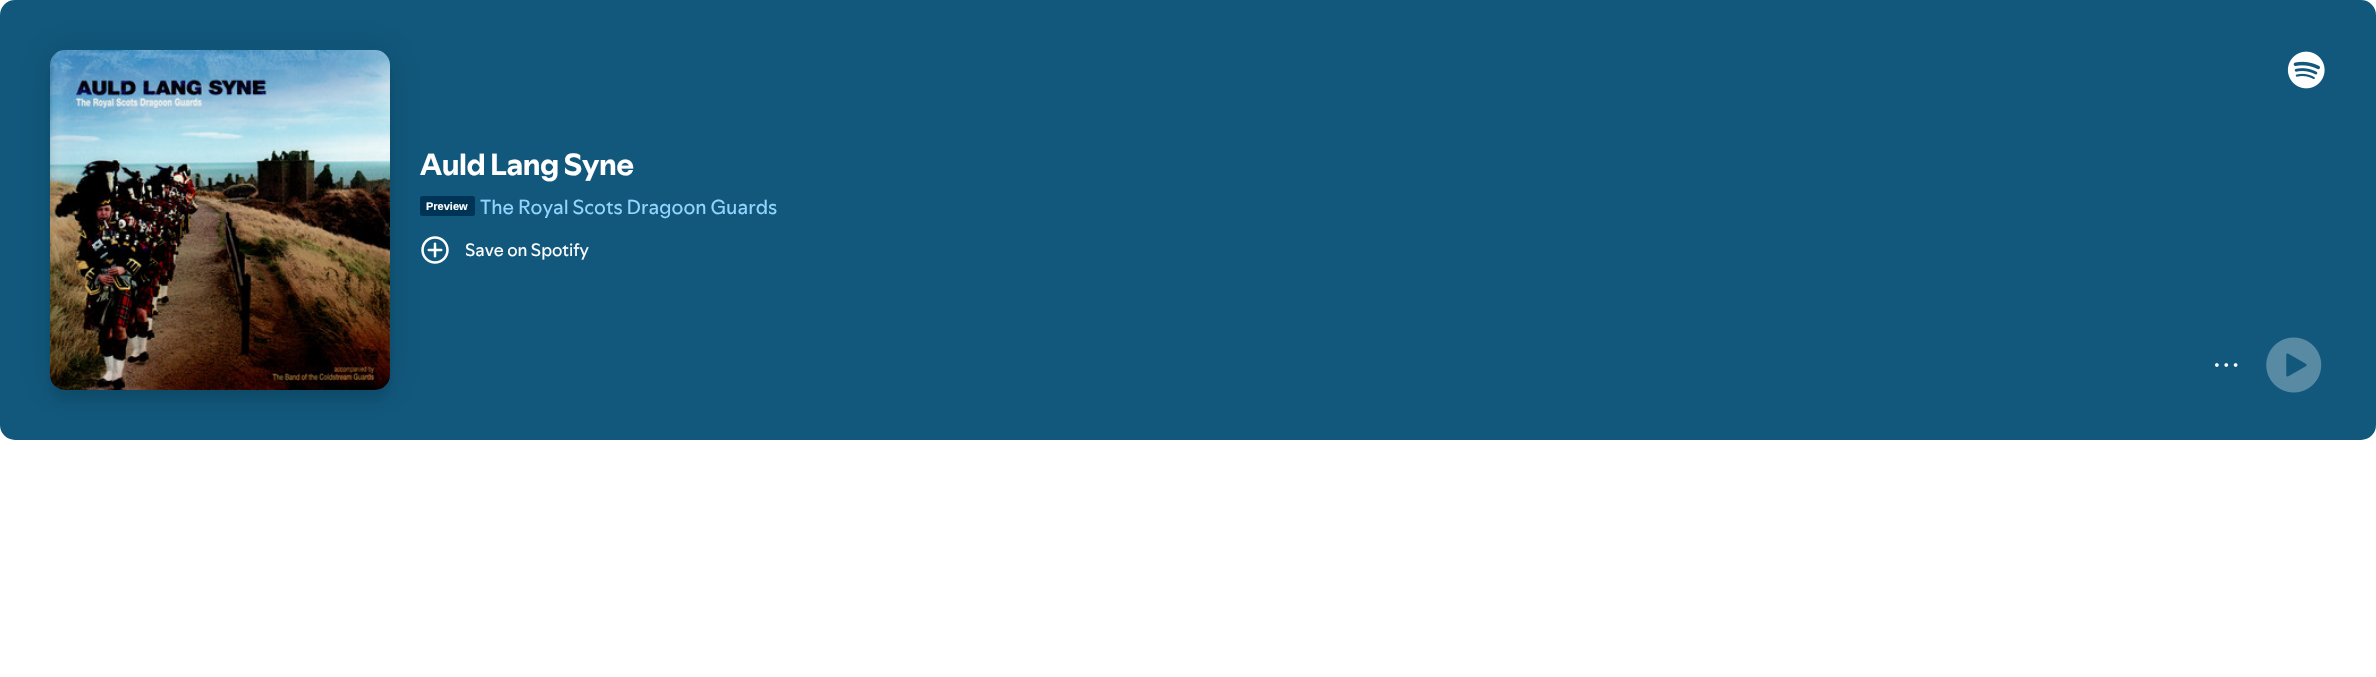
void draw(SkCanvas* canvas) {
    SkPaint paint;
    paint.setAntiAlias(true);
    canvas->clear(0xFFFFFFFF);
    paint.setColor(0xFF11587C);
    canvas->drawRoundRect(SkRect::MakeXYWH(0, 0, 2376, 440), 15, 15, paint);
    paint.setColor(0x1A000000);
    paint.setMaskFilter(SkMaskFilter::MakeBlur(kNormal_SkBlurStyle, 18));
    canvas->drawRoundRect(SkRect::MakeXYWH(50, 50, 340, 340), 15, 15, paint);
    paint.setMaskFilter(nullptr);
    paint.setMaskFilter(SkMaskFilter::MakeBlur(kNormal_SkBlurStyle, 5.5f));
    canvas->drawRoundRect(SkRect::MakeXYWH(50, 61, 340, 340), 15, 15, paint);
    paint.setMaskFilter(nullptr);
    canvas->drawImageRect(SkImages::DeferredFromEncodedData(SkData::MakeFromFileName("img1.png")), SkRect::MakeXYWH(50, 50, 340, 340), SkSamplingOptions());
    canvas->drawImageRect(SkImages::DeferredFromEncodedData(SkData::MakeFromFileName("img2.png")), SkRect::MakeXYWH(2287, 51, 38, 38), SkSamplingOptions());
    SkFont font1(fontMgr->matchFamilyStyle("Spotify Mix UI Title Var", SkFontStyle::Bold()), 30);
    font1.setSubpixel(true);
    paint.setColor(0xFFFFFFFF);
    canvas->drawString("Auld Lang Syne", 420, 175, font1, paint);
    paint.setColor(0xFF003456);
    canvas->drawRoundRect(SkRect::MakeXYWH(420, 196, 55, 20), 2.5f, 2.5f, paint);
    SkFont font2(fontMgr->matchFamilyStyle("Liberation Sans", SkFontStyle::Bold()), 11);
    font2.setSubpixel(true);
    paint.setColor(0xFFFFFFFF);
    canvas->drawString("Preview", 426, 210, font2, paint);
    SkFont font3(fontMgr->matchFamilyStyle("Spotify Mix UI", SkFontStyle::Normal()), 20);
    font3.setSubpixel(true);
    paint.setColor(0xFF94D5FF);
    canvas->drawString("The Royal Scots Dragoon Guards", 480, 214, font3, paint);
    canvas->drawImageRect(SkImages::DeferredFromEncodedData(SkData::MakeFromFileName("img3.png")), SkRect::MakeXYWH(421, 236, 28, 28), SkSamplingOptions());
    SkFont font4(fontMgr->matchFamilyStyle("Spotify Mix UI", SkFontStyle::Normal()), 17.5f);
    font4.setSubpixel(true);
    paint.setColor(0xFFFFFFFF);
    canvas->drawString("Save on Spotify", 465, 256, font4, paint);
    canvas->drawImageRect(SkImages::DeferredFromEncodedData(SkData::MakeFromFileName("img4.png")), SkRect::MakeXYWH(2215, 363, 23, 4), SkSamplingOptions());
    canvas->drawImageRect(SkImages::DeferredFromEncodedData(SkData::MakeFromFileName("img5.png")), SkRect::MakeXYWH(2266, 337, 56, 56), SkSamplingOptions());
}
